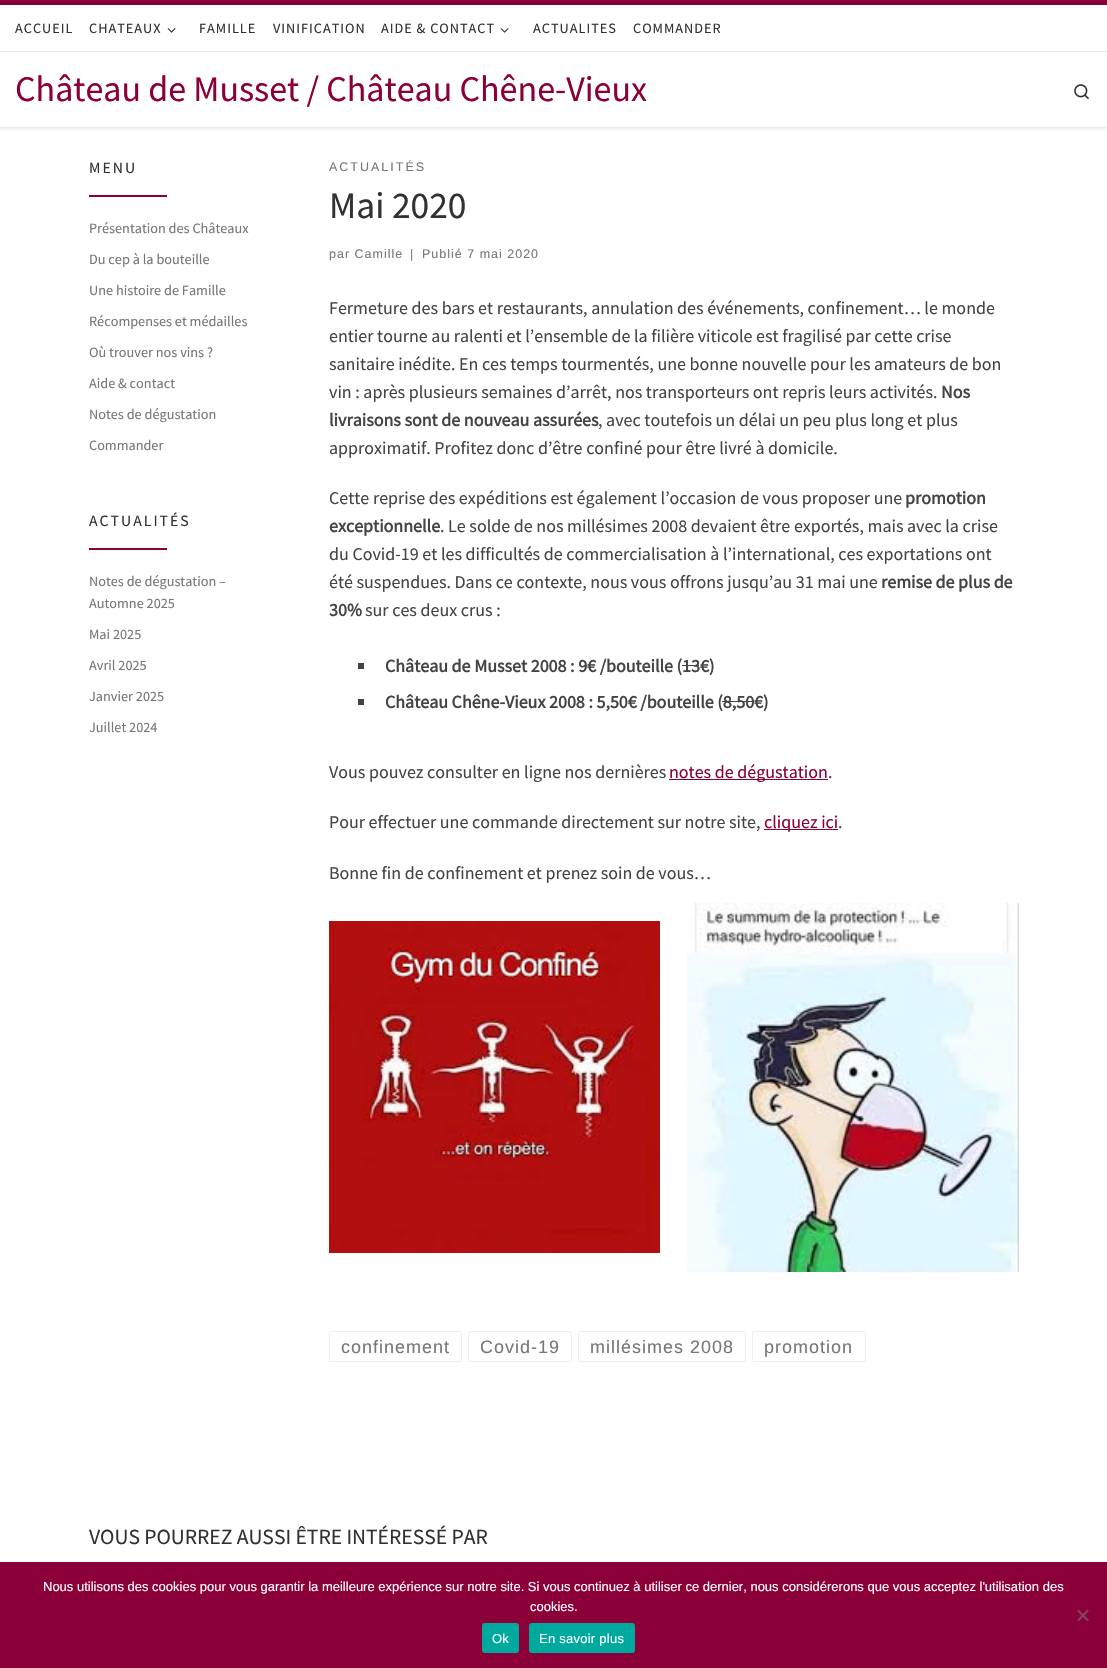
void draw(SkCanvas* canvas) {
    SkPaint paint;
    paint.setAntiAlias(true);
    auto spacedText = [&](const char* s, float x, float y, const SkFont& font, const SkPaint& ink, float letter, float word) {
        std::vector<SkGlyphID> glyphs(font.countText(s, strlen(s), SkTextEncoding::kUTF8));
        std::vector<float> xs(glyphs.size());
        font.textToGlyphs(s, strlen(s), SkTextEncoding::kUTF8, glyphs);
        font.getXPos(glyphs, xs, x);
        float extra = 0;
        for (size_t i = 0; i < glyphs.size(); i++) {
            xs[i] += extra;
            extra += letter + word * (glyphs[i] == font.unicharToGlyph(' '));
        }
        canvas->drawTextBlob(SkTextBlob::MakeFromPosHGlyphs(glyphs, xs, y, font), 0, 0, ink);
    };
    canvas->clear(0xFFFFFFFF);
    canvas->save();
    canvas->clipRect(SkRect::MakeXYWH(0, 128, 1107, 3));
    paint.setColor(0x14666666);
    paint.setMaskFilter(SkMaskFilter::MakeBlur(kNormal_SkBlurStyle, 1));
    canvas->drawRect(SkRect::MakeXYWH(0, 2, 1107, 128), paint);
    paint.setMaskFilter(nullptr);
    canvas->restore();
    paint.setColor(0xFF8C0039);
    canvas->drawRect(SkRect::MakeXYWH(0, 0, 1107, 5), paint);
    paint.setColor(0xFFECECEC);
    canvas->drawRect(SkRect::MakeXYWH(0, 127, 1107, 1), paint);
    canvas->save();
    canvas->clipRect(SkRect::MakeXYWH(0, 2, 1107, 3));
    paint.setColor(0x33000000);
    paint.setMaskFilter(SkMaskFilter::MakeBlur(kNormal_SkBlurStyle, 2.5f));
    canvas->drawRect(SkRect::MakeXYWH(0, 5, 1107, 47), paint);
    paint.setMaskFilter(nullptr);
    canvas->restore();
    paint.setColor(0xFFECECEC);
    canvas->drawRect(SkRect::MakeXYWH(0, 51, 1107, 1), paint);
    SkFont font1(fontMgr->matchFamilyStyle("Source Sans Pro", SkFontStyle::Normal()), 14.25f);
    font1.setSubpixel(true);
    paint.setColor(0xFF303133);
    spacedText("ACCUEIL", 15, 33, font1, paint, 1, 0);
    spacedText("CHATEAUX", 89, 33, font1, paint, 1, 0);
    canvas->drawImageRect(SkImages::DeferredFromEncodedData(SkData::MakeFromFileName("img1.png")), SkRect::MakeXYWH(167, 28, 9, 5), SkSamplingOptions());
    spacedText("FAMILLE", 199, 33, font1, paint, 1, 0);
    spacedText("VINIFICATION", 273, 33, font1, paint, 1, 0);
    spacedText("AIDE & CONTACT", 381, 33, font1, paint, 1, 0);
    canvas->drawImageRect(SkImages::DeferredFromEncodedData(SkData::MakeFromFileName("img1.png")), SkRect::MakeXYWH(500, 28, 9, 5), SkSamplingOptions());
    spacedText("ACTUALITES", 533, 33, font1, paint, 1, 0);
    spacedText("COMMANDER", 633, 33, font1, paint, 1, 0);
    paint.setColor(0xFFFFFFFF);
    canvas->drawRect(SkRect::MakeXYWH(0, 52, 1107, 4), paint);
    SkFont font2(fontMgr->matchFamilyStyle("Source Sans Pro", SkFontStyle::Normal()), 36);
    font2.setSubpixel(true);
    paint.setColor(0xFF8C0039);
    canvas->drawString("Château de Musset / Château Chêne-Vieux", 15, 101, font2, paint);
    canvas->drawImageRect(SkImages::DeferredFromEncodedData(SkData::MakeFromFileName("img2.png")), SkRect::MakeXYWH(1074, 84, 15, 16), SkSamplingOptions());
    SkFont font3(fontMgr->matchFamilyStyle("Source Sans Pro", SkFontStyle::Normal()), 15.75f);
    font3.setSubpixel(true);
    paint.setColor(0xFF303133);
    spacedText("MENU", 89, 173, font3, paint, 2, 0);
    paint.setColor(0xFF8C0039);
    canvas->drawRect(SkRect::MakeXYWH(89, 195, 78, 2), paint);
    paint.setColor(0xFF777777);
    canvas->drawString("Présentation des Châteaux", 89, 233, font1, paint);
    canvas->drawString("Du cep à la bouteille", 89, 264, font1, paint);
    canvas->drawString("Une histoire de Famille", 89, 295, font1, paint);
    canvas->drawString("Récompenses et médailles", 89, 326, font1, paint);
    canvas->drawString("Où trouver nos vins ?", 89, 357, font1, paint);
    canvas->drawString("Aide & contact", 89, 388, font1, paint);
    canvas->drawString("Notes de dégustation", 89, 419, font1, paint);
    canvas->drawString("Commander", 89, 450, font1, paint);
    paint.setColor(0xFF303133);
    spacedText("ACTUALITÉS", 89, 526, font3, paint, 2, 0);
    paint.setColor(0xFF8C0039);
    canvas->drawRect(SkRect::MakeXYWH(89, 548, 78, 2), paint);
    paint.setColor(0xFF777777);
    canvas->drawString("Notes de dégustation –", 89, 586, font1, paint);
    canvas->drawString("Automne 2025", 89, 608, font1, paint);
    canvas->drawString("Mai 2025", 89, 639, font1, paint);
    canvas->drawString("Avril 2025", 89, 670, font1, paint);
    canvas->drawString("Janvier 2025", 89, 701, font1, paint);
    canvas->drawString("Juillet 2024", 89, 732, font1, paint);
    SkFont font4(fontMgr->matchFamilyStyle("Liberation Sans", SkFontStyle::Normal()), 12.5f);
    font4.setSubpixel(true);
    spacedText("ACTUALITÉS", 329, 171, font4, paint, 2, 0);
    SkFont font5(fontMgr->matchFamilyStyle("Source Sans Pro", SkFontStyle::Normal()), 37.5f);
    font5.setSubpixel(true);
    paint.setColor(0xFF303133);
    canvas->drawString("Mai 2020", 329, 218, font5, paint);
    paint.setColor(0xFF777777);
    spacedText("par Camille", 329, 258, font4, paint, 1, 0);
    spacedText("|", 410, 258, font4, paint, 1, 0);
    spacedText("Publié 7 mai 2020", 422, 258, font4, paint, 1, 0);
    SkFont font6(fontMgr->matchFamilyStyle("Source Sans Pro", SkFontStyle::Normal()), 18);
    font6.setSubpixel(true);
    paint.setColor(0xFF444444);
    canvas->drawString("Fermeture des bars et restaurants, annulation des événements, confinement… le monde", 329, 314, font6, paint);
    canvas->drawString("entier tourne au ralenti et l’ensemble de la filière viticole est fragilisé par cette crise", 329, 342, font6, paint);
    canvas->drawString("sanitaire inédite. En ces temps tourmentés, une bonne nouvelle pour les amateurs de bon", 329, 370, font6, paint);
    canvas->drawString("vin : après plusieurs semaines d’arrêt, nos transporteurs ont repris leurs activités.", 329, 398, font6, paint);
    SkFont font7(fontMgr->matchFamilyStyle("Source Sans Pro", SkFontStyle::Bold()), 18);
    font7.setSubpixel(true);
    canvas->drawString("Nos", 941, 398, font7, paint);
    canvas->drawString("livraisons sont de nouveau assurées", 329, 426, font7, paint);
    canvas->drawString(", avec toutefois un délai un peu plus long et plus", 598, 426, font6, paint);
    canvas->drawString("approximatif. Profitez donc d’être confiné pour être livré à domicile.", 329, 454, font6, paint);
    canvas->drawString("Cette reprise des expéditions est également l’occasion de vous proposer une", 329, 504, font6, paint);
    canvas->drawString("promotion", 905, 504, font7, paint);
    canvas->drawString("exceptionnelle", 329, 532, font7, paint);
    canvas->drawString(". Le solde de nos millésimes 2008 devaient être exportés, mais avec la crise", 440, 532, font6, paint);
    canvas->drawString("du Covid-19 et les difficultés de commercialisation à l’international, ces exportations ont", 329, 560, font6, paint);
    canvas->drawString("été suspendues. Dans ce contexte, nous vous offrons jusqu’au 31 mai une", 329, 588, font6, paint);
    canvas->drawString("remise de plus de", 881, 588, font7, paint);
    canvas->drawString("30%", 329, 616, font7, paint);
    canvas->drawString("sur ces deux crus :", 365, 616, font6, paint);
    canvas->drawRect(SkRect::MakeXYWH(358, 663, 6, 6), paint);
    canvas->drawString("Château de Musset 2008 : 9€ /bouteille (13€)", 385, 672, font7, paint);
    canvas->drawRect(SkRect::MakeXYWH(682, 665, 17, 1), paint);
    canvas->drawRect(SkRect::MakeXYWH(358, 699, 6, 6), paint);
    canvas->drawString("Château Chêne-Vieux 2008 : 5,50€ /bouteille (8,50€)", 385, 708, font7, paint);
    canvas->drawRect(SkRect::MakeXYWH(722, 701, 32, 1), paint);
    canvas->drawString("Vous pouvez consulter en ligne nos dernières", 329, 778, font6, paint);
    paint.setColor(0xFF8C0039);
    canvas->drawRect(SkRect::MakeXYWH(669, 779, 159, 1), paint);
    canvas->drawString("notes de dégustation", 669, 778, font6, paint);
    paint.setColor(0xFF444444);
    canvas->drawString(".", 828, 778, font6, paint);
    canvas->drawString("Pour effectuer une commande directement sur notre site,", 329, 828, font6, paint);
    paint.setColor(0xFF8C0039);
    canvas->drawRect(SkRect::MakeXYWH(764, 829, 74, 1), paint);
    canvas->drawString("cliquez ici", 764, 828, font6, paint);
    paint.setColor(0xFF444444);
    canvas->drawString(".", 838, 828, font6, paint);
    canvas->drawString("Bonne fin de confinement et prenez soin de vous…", 329, 879, font6, paint);
    canvas->drawImageRect(SkImages::DeferredFromEncodedData(SkData::MakeFromFileName("img3.png")), SkRect::MakeXYWH(329, 921, 331, 332), SkSamplingOptions());
    canvas->drawImageRect(SkImages::DeferredFromEncodedData(SkData::MakeFromFileName("img4.png")), SkRect::MakeXYWH(687, 903, 332, 369), SkSamplingOptions());
    paint.setStyle(SkPaint::kStroke_Style);
    paint.setStrokeWidth(1);
    paint.setColor(0xFFECEEEF);
    canvas->drawRoundRect(SkRect::MakeXYWH(329.5f, 1331.5f, 132, 30), 1.5f, 1.5f, paint);
    SkFont font8(fontMgr->matchFamilyStyle("Liberation Sans", SkFontStyle::Normal()), 18);
    font8.setSubpixel(true);
    paint.setStyle(SkPaint::kFill_Style);
    paint.setColor(0xFF777777);
    spacedText("confinement", 341, 1353, font8, paint, 1, 0);
    paint.setStyle(SkPaint::kStroke_Style);
    paint.setColor(0xFFECEEEF);
    canvas->drawRoundRect(SkRect::MakeXYWH(468.5f, 1331.5f, 103, 30), 1.5f, 1.5f, paint);
    paint.setStyle(SkPaint::kFill_Style);
    paint.setColor(0xFF777777);
    spacedText("Covid-19", 480, 1353, font8, paint, 1, 0);
    paint.setStyle(SkPaint::kStroke_Style);
    paint.setColor(0xFFECEEEF);
    canvas->drawRoundRect(SkRect::MakeXYWH(578.5f, 1331.5f, 167, 30), 1.5f, 1.5f, paint);
    paint.setStyle(SkPaint::kFill_Style);
    paint.setColor(0xFF777777);
    spacedText("millésimes 2008", 590, 1353, font8, paint, 1, 0);
    paint.setStyle(SkPaint::kStroke_Style);
    paint.setColor(0xFFECEEEF);
    canvas->drawRoundRect(SkRect::MakeXYWH(752.5f, 1331.5f, 113, 30), 1.5f, 1.5f, paint);
    paint.setStyle(SkPaint::kFill_Style);
    paint.setColor(0xFF777777);
    spacedText("promotion", 764, 1353, font8, paint, 1, 0);
    SkFont font9(fontMgr->matchFamilyStyle("Source Sans Pro", SkFontStyle::Normal()), 21.6f);
    font9.setSubpixel(true);
    paint.setColor(0xFF303133);
    canvas->drawString("VOUS POURREZ AUSSI ÊTRE INTÉRESSÉ PAR", 89, 1544, font9, paint);
    paint.setColor(0xFF8C0039);
    canvas->drawRect(SkRect::MakeXYWH(0, 1562, 1107, 106), paint);
    SkFont font10(fontMgr->matchFamilyStyle("Liberation Sans", SkFontStyle::Normal()), 13);
    font10.setSubpixel(true);
    paint.setColor(0xFFFFFFFF);
    canvas->drawString("Nous utilisons des cookies pour vous garantir la meilleure expérience sur notre site. Si vous continuez à utiliser ce dernier, nous considérerons que vous acceptez l'utilisation des", 43, 1591, font10, paint);
    canvas->drawString("cookies.", 530, 1611, font10, paint);
    paint.setColor(0xFF86405D);
    canvas->drawPath(SkPathBuilder().moveTo(1087.5f, 1609.5f).lineTo(1089, 1611).lineTo(1078.5f, 1621.5f).lineTo(1077, 1620).close().detach(), paint);
    canvas->drawPath(SkPathBuilder().moveTo(1077, 1611).lineTo(1078.5f, 1609.5f).lineTo(1089, 1620).lineTo(1087.5f, 1621.5f).close().detach(), paint);
    paint.setColor(0xFF00A99D);
    canvas->drawRoundRect(SkRect::MakeXYWH(482, 1623, 37, 30), 3, 3, paint);
    paint.setColor(0xFFFFFFFF);
    spacedText("Ok", 492, 1643, font10, paint, 0.25f, 0);
    paint.setColor(0xFF00A99D);
    canvas->drawRoundRect(SkRect::MakeXYWH(529, 1623, 106, 30), 3, 3, paint);
    paint.setColor(0xFFFFFFFF);
    spacedText("En savoir plus", 539, 1643, font10, paint, 0.25f, 0);
}
